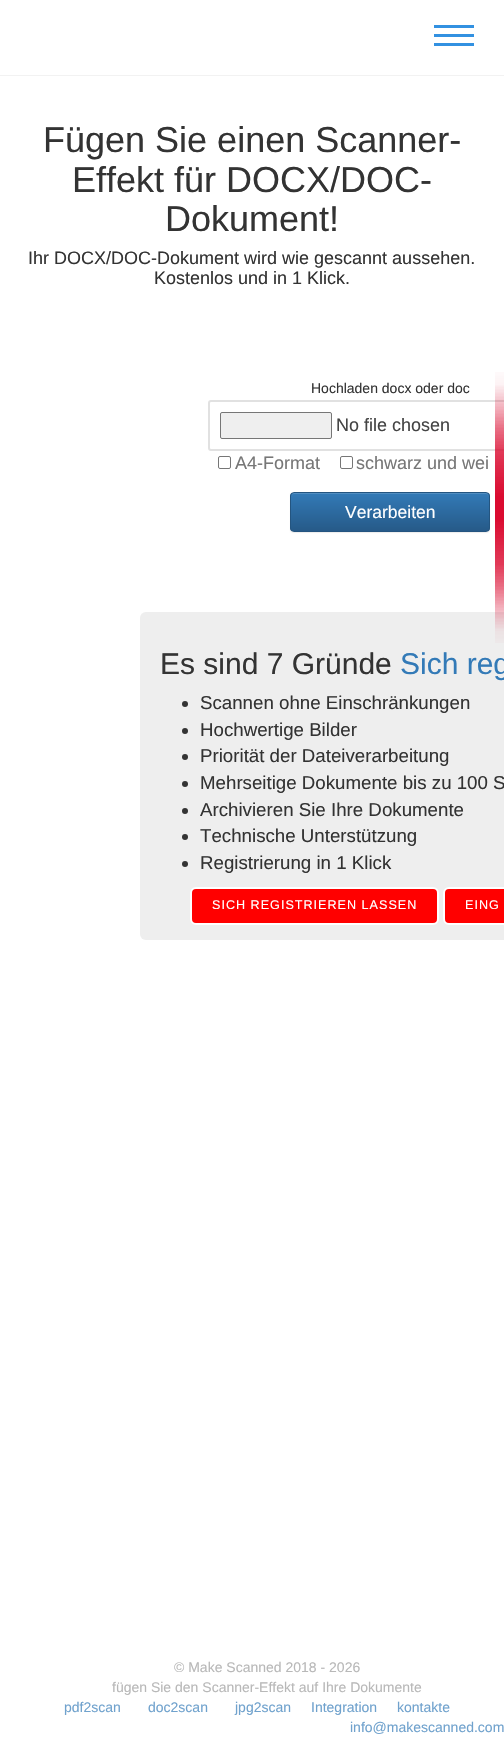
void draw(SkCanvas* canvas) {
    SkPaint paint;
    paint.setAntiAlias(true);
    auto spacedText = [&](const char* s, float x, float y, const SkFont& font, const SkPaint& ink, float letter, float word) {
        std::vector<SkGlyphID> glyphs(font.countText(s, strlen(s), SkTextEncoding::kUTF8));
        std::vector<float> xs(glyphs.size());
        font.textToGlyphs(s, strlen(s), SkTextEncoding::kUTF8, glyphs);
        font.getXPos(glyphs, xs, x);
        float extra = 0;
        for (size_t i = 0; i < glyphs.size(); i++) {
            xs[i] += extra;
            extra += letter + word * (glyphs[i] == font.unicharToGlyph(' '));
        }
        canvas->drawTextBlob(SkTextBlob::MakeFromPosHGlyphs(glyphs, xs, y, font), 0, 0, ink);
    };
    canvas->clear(0xFFFFFFFF);
    paint.setColor(0xFFF2F2F2);
    canvas->drawRect(SkRect::MakeXYWH(0, 75, 504, 1), paint);
    paint.setColor(0xFF3291E1);
    canvas->drawRect(SkRect::MakeXYWH(434, 25, 40, 3), paint);
    canvas->drawRect(SkRect::MakeXYWH(434, 34, 40, 3), paint);
    canvas->drawRect(SkRect::MakeXYWH(434, 43, 40, 3), paint);
    paint.setStyle(SkPaint::kStroke_Style);
    paint.setStrokeWidth(2);
    paint.setColor(0xFFE1E1E1);
    canvas->drawRoundRect(SkRect::MakeXYWH(209, 401, 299, 49), 2, 2, paint);
    paint.setStyle(SkPaint::kFill_Style);
    paint.setColor(0xFFEEEEEE);
    canvas->drawRoundRect(SkRect::MakeXYWH(140, 612, 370, 328), 6, 6, paint);
    canvas->drawImageRect(SkImages::DeferredFromEncodedData(SkData::MakeFromFileName("img1.png")), SkRect::MakeXYWH(495, 372, 9, 271), SkSamplingOptions());
    SkFont font1(fontMgr->matchFamilyStyle("Liberation Sans", SkFontStyle::Normal()), 36);
    font1.setSubpixel(true);
    paint.setColor(0xFF333333);
    canvas->drawString("Fügen Sie einen Scanner-", 43, 152, font1, paint);
    canvas->drawString("Effekt für DOCX/DOC-", 72, 192, font1, paint);
    canvas->drawString("Dokument!", 165, 231, font1, paint);
    SkFont font2(fontMgr->matchFamilyStyle("Liberation Sans", SkFontStyle::Normal()), 18);
    font2.setSubpixel(true);
    canvas->drawString("Ihr DOCX/DOC-Dokument wird wie gescannt aussehen.", 28, 264, font2, paint);
    canvas->drawString("Kostenlos und in 1 Klick.", 154, 284, font2, paint);
    SkFont font3(fontMgr->matchFamilyStyle("Liberation Sans", SkFontStyle::Normal()), 14);
    font3.setSubpixel(true);
    canvas->drawString("Hochladen docx oder doc", 311, 393, font3, paint);
    paint.setColor(0xFFEFEFEF);
    canvas->drawRoundRect(SkRect::MakeXYWH(220.5f, 412.5f, 111, 26), 1.5f, 1.5f, paint);
    paint.setStyle(SkPaint::kStroke_Style);
    paint.setStrokeWidth(1);
    paint.setColor(0xFF767676);
    canvas->drawRoundRect(SkRect::MakeXYWH(220.5f, 412.5f, 111, 26), 1.5f, 1.5f, paint);
    paint.setStyle(SkPaint::kFill_Style);
    paint.setColor(0xFF444444);
    canvas->drawString("No file chosen", 336, 431, font2, paint);
    paint.setStyle(SkPaint::kStroke_Style);
    paint.setColor(0xFF767676);
    canvas->drawRoundRect(SkRect::MakeXYWH(218.5f, 456.5f, 12, 12), 1.5f, 1.5f, paint);
    paint.setStyle(SkPaint::kFill_Style);
    paint.setColor(0xFF777777);
    canvas->drawString("A4-Format", 235, 469, font2, paint);
    paint.setStyle(SkPaint::kStroke_Style);
    paint.setColor(0xFF767676);
    canvas->drawRoundRect(SkRect::MakeXYWH(340.5f, 456.5f, 12, 12), 1.5f, 1.5f, paint);
    paint.setStyle(SkPaint::kFill_Style);
    paint.setColor(0xFF777777);
    canvas->drawString("schwarz und wei", 356, 469, font2, paint);
    paint.setColor(0x12000000);
    paint.setMaskFilter(SkMaskFilter::MakeBlur(kNormal_SkBlurStyle, 0.5f));
    canvas->drawRoundRect(SkRect::MakeXYWH(290, 493, 200, 40), 4, 4, paint);
    paint.setMaskFilter(nullptr);
    canvas->save();
    canvas->clipPath(SkPathBuilder().moveTo(294, 492).lineTo(486, 492).cubicTo(488, 492, 490, 494, 490, 496).lineTo(490, 528).cubicTo(490, 530, 488, 532, 486, 532).lineTo(294, 532).cubicTo(292, 532, 290, 530, 290, 528).lineTo(290, 496).cubicTo(290, 494, 292, 492, 294, 492).close().detach(), true);
    {
        const SkColor colors[] = {0xFF337AB7, 0xFF265A88};
        const float stops[] = {0, 1};
        const SkPoint ends[] = {{390, 493}, {390, 531}};
        paint.setShader(SkGradientShader::MakeLinear(ends, colors, stops, 2, SkTileMode::kClamp));
        paint.setAlpha(255);
    }
    canvas->drawRect(SkRect::MakeXYWH(290, 493, 200, 38), paint);
    canvas->restore();
    paint.setShader(nullptr);
    paint.setColor(0xFF528EC1);
    canvas->drawPath(SkPathBuilder().moveTo(294, 494).lineTo(486, 494).cubicTo(488, 494, 489, 495, 489, 497).cubicTo(489, 495, 488, 493, 486, 493).lineTo(294, 493).cubicTo(292, 493, 291, 495, 291, 497).cubicTo(291, 495, 292, 494, 294, 494).close().detach(), paint);
    paint.setStyle(SkPaint::kStroke_Style);
    paint.setColor(0xFF245580);
    canvas->drawRoundRect(SkRect::MakeXYWH(290.5f, 492.5f, 199, 39), 3.5f, 3.5f, paint);
    SkFont font4(fontMgr->matchFamilyStyle("Liberation Sans", SkFontStyle::Normal()), 17.5f);
    font4.setSubpixel(true);
    paint.setStyle(SkPaint::kFill_Style);
    paint.setColor(0xFFFFFFFF);
    canvas->drawString("Verarbeiten", 345, 518, font4, paint);
    SkFont font5(fontMgr->matchFamilyStyle("Liberation Sans", SkFontStyle::Normal()), 30);
    font5.setSubpixel(true);
    paint.setColor(0xFF333333);
    canvas->drawString("Es sind 7 Gründe", 160, 674, font5, paint);
    paint.setColor(0xFF337AB7);
    canvas->drawString("Sich reg", 400, 674, font5, paint);
    paint.setColor(0xFF333333);
    canvas->drawCircle(185, 704, 3, paint);
    SkFont font6(fontMgr->matchFamilyStyle("Liberation Sans", SkFontStyle::Normal()), 18.7f);
    font6.setSubpixel(true);
    canvas->drawString("Scannen ohne Einschränkungen", 200, 709, font6, paint);
    canvas->drawCircle(185, 731, 3, paint);
    canvas->drawString("Hochwertige Bilder", 200, 736, font6, paint);
    canvas->drawCircle(185, 757, 3, paint);
    canvas->drawString("Priorität der Dateiverarbeitung", 200, 762, font6, paint);
    canvas->drawCircle(185, 784, 3, paint);
    canvas->drawString("Mehrseitige Dokumente bis zu 100 S", 200, 789, font6, paint);
    canvas->drawCircle(185, 811, 3, paint);
    canvas->drawString("Archivieren Sie Ihre Dokumente", 200, 816, font6, paint);
    canvas->drawCircle(185, 837, 3, paint);
    canvas->drawString("Technische Unterstützung", 200, 842, font6, paint);
    canvas->drawCircle(185, 864, 3, paint);
    canvas->drawString("Registrierung in 1 Klick", 200, 869, font6, paint);
    paint.setColor(0xFFFF0000);
    canvas->drawRoundRect(SkRect::MakeXYWH(191, 888, 247, 36), 5, 5, paint);
    paint.setStyle(SkPaint::kStroke_Style);
    paint.setStrokeWidth(2);
    paint.setColor(0xFFFFFFFF);
    canvas->drawRoundRect(SkRect::MakeXYWH(191, 888, 247, 36), 5, 5, paint);
    SkFont font7(fontMgr->matchFamilyStyle("Liberation Sans", SkFontStyle::Normal()), 12.6f);
    font7.setSubpixel(true);
    paint.setStyle(SkPaint::kFill_Style);
    spacedText("SICH REGISTRIEREN LASSEN", 212, 909, font7, paint, 1, 0);
    paint.setColor(0xFFFF0000);
    canvas->drawRoundRect(SkRect::MakeXYWH(444, 888, 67, 36), 5, 5, paint);
    paint.setStyle(SkPaint::kStroke_Style);
    paint.setColor(0xFFFFFFFF);
    canvas->drawRoundRect(SkRect::MakeXYWH(444, 888, 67, 36), 5, 5, paint);
    paint.setStyle(SkPaint::kFill_Style);
    spacedText("EING", 465, 909, font7, paint, 1, 0);
    paint.setColor(0xFFB8B8B8);
    canvas->drawString("© Make Scanned 2018 - 2026", 174, 1672, font3, paint);
    canvas->drawString("fügen Sie den Scanner-Effekt auf Ihre Dokumente", 112, 1692, font3, paint);
    paint.setColor(0xFF70A2CD);
    canvas->drawString("pdf2scan", 64, 1712, font3, paint);
    canvas->drawString("doc2scan", 148, 1712, font3, paint);
    canvas->drawString("jpg2scan", 235, 1712, font3, paint);
    canvas->drawString("Integration", 311, 1712, font3, paint);
    canvas->drawString("kontakte", 397, 1712, font3, paint);
    canvas->drawString("info@makescanned.com", 350, 1732, font3, paint);
}
